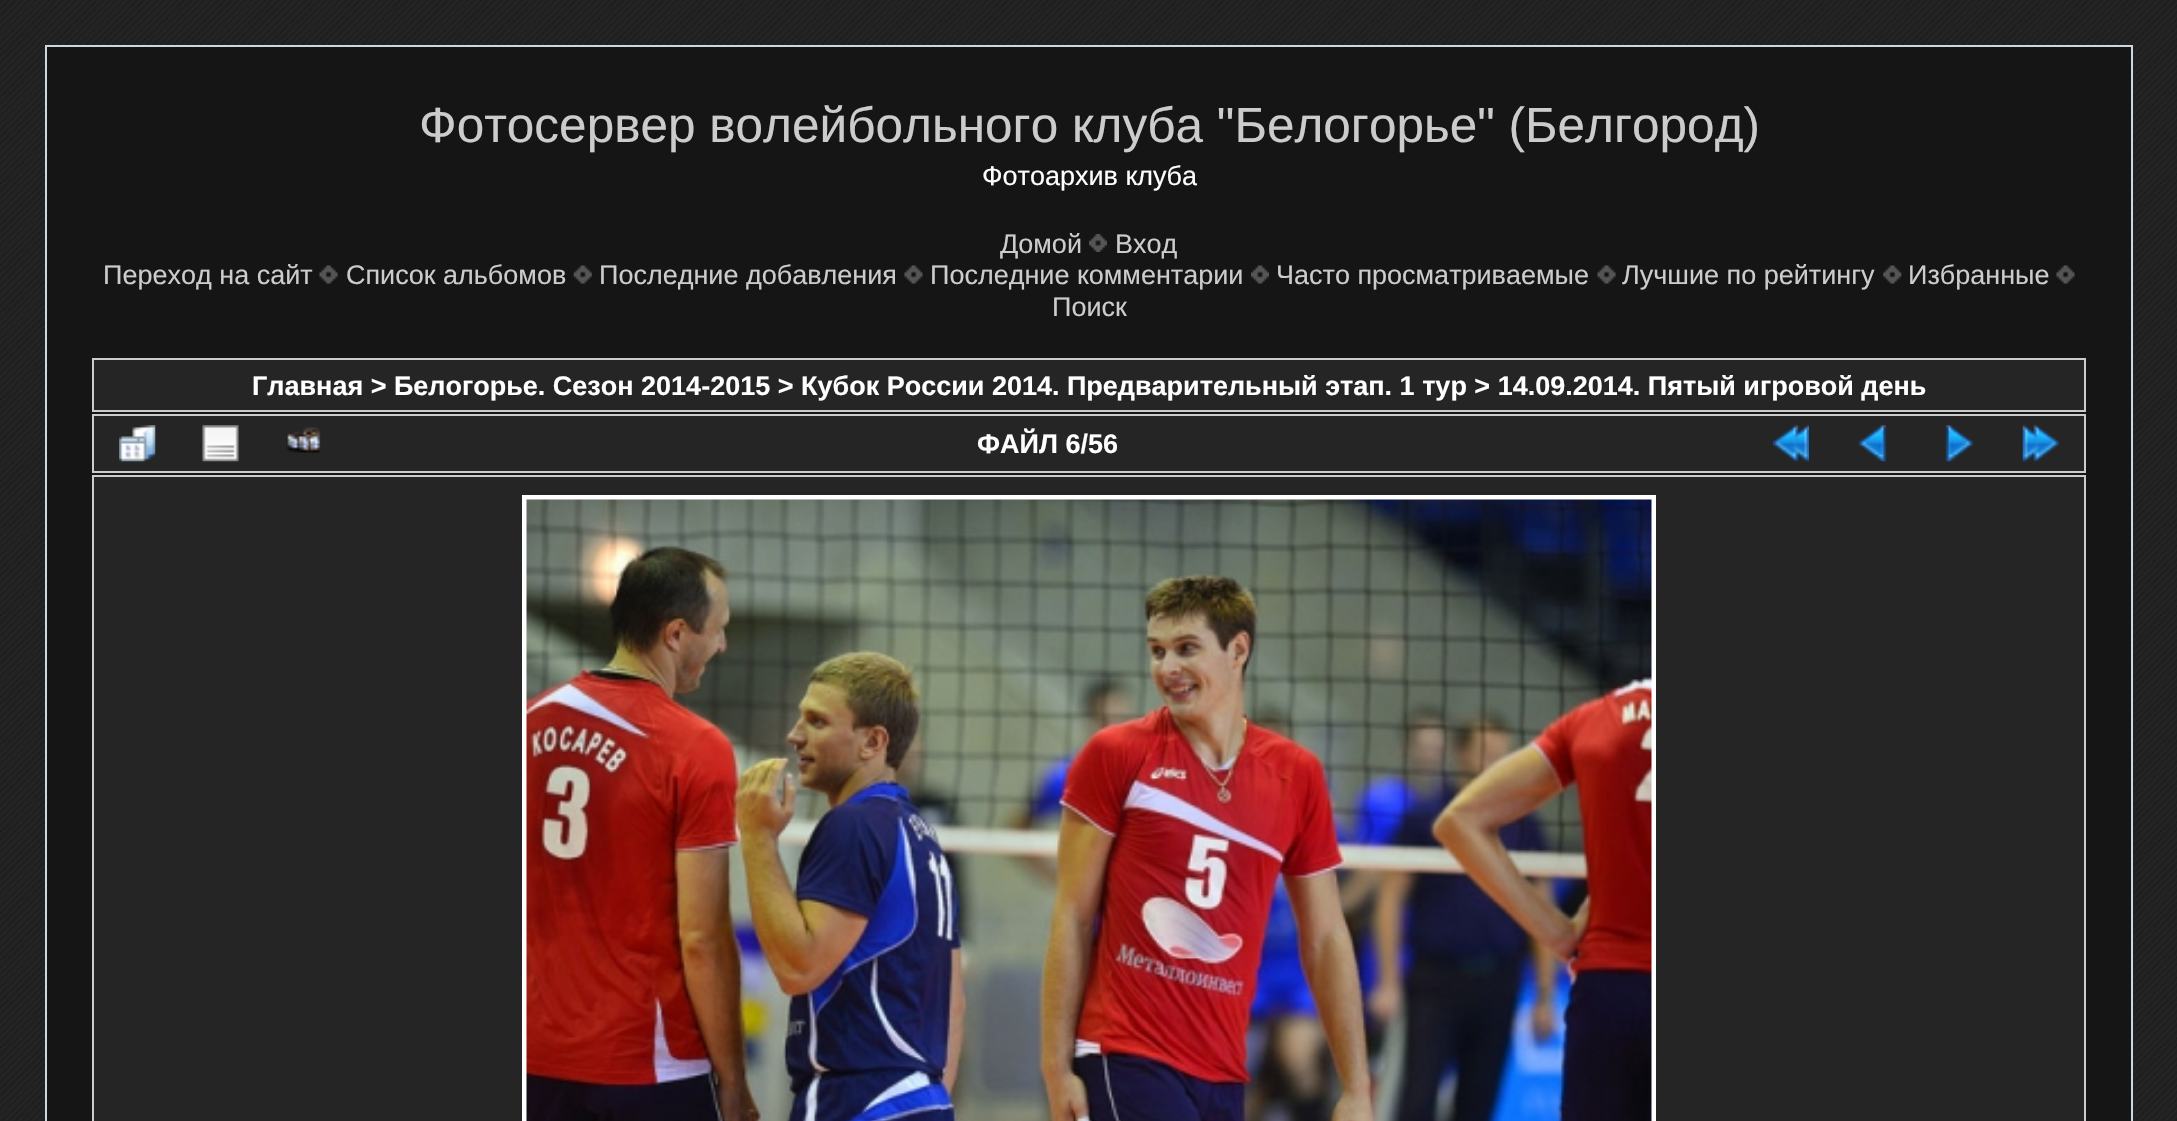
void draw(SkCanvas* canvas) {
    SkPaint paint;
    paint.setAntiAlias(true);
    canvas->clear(0xFFFFFFFF);
    canvas->drawImageRect(SkImages::DeferredFromEncodedData(SkData::MakeFromFileName("img1.png")), SkRect::MakeXYWH(0, 0, 2177, 1121), SkSamplingOptions());
    paint.setColor(0xFF151515);
    canvas->drawRect(SkRect::MakeXYWH(46, 46, 2086, 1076), paint);
    paint.setStyle(SkPaint::kStroke_Style);
    paint.setStrokeWidth(2);
    paint.setColor(0xFFCCD7E0);
    canvas->drawRect(SkRect::MakeXYWH(46, 46, 2086, 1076), paint);
    SkFont font1(fontMgr->matchFamilyStyle("Liberation Sans", SkFontStyle::Normal()), 49.5f);
    font1.setSubpixel(true);
    paint.setStyle(SkPaint::kFill_Style);
    paint.setColor(0xFFCCCCCC);
    canvas->drawString("Фотосервер волейбольного клуба \"Белогорье\" (Белгород)", 419, 142, font1, paint);
    SkFont font2(fontMgr->matchFamilyStyle("Liberation Sans", SkFontStyle::Normal()), 27);
    font2.setSubpixel(true);
    paint.setColor(0xFFFFFFFF);
    canvas->drawString("Фотоархив клуба", 982, 185, font2, paint);
    paint.setColor(0xFFCCCCCC);
    canvas->drawString("Домой", 1000, 253, font2, paint);
    canvas->drawImageRect(SkImages::DeferredFromEncodedData(SkData::MakeFromFileName("img2.png")), SkRect::MakeXYWH(1089, 234, 18, 18), SkSamplingOptions());
    canvas->drawString("Вход", 1115, 253, font2, paint);
    canvas->drawString("Переход на сайт", 103, 284, font2, paint);
    canvas->drawImageRect(SkImages::DeferredFromEncodedData(SkData::MakeFromFileName("img3.png")), SkRect::MakeXYWH(319, 265, 19, 19), SkSamplingOptions());
    canvas->drawString("Список альбомов", 346, 284, font2, paint);
    canvas->drawImageRect(SkImages::DeferredFromEncodedData(SkData::MakeFromFileName("img4.png")), SkRect::MakeXYWH(573, 265, 19, 19), SkSamplingOptions());
    canvas->drawString("Последние добавления", 599, 284, font2, paint);
    canvas->drawImageRect(SkImages::DeferredFromEncodedData(SkData::MakeFromFileName("img3.png")), SkRect::MakeXYWH(904, 265, 19, 19), SkSamplingOptions());
    canvas->drawString("Последние комментарии", 930, 284, font2, paint);
    canvas->drawImageRect(SkImages::DeferredFromEncodedData(SkData::MakeFromFileName("img5.png")), SkRect::MakeXYWH(1251, 265, 18, 19), SkSamplingOptions());
    canvas->drawString("Часто просматриваемые", 1276, 284, font2, paint);
    canvas->drawImageRect(SkImages::DeferredFromEncodedData(SkData::MakeFromFileName("img3.png")), SkRect::MakeXYWH(1597, 265, 19, 19), SkSamplingOptions());
    canvas->drawString("Лучшие по рейтингу", 1622, 284, font2, paint);
    canvas->drawImageRect(SkImages::DeferredFromEncodedData(SkData::MakeFromFileName("img6.png")), SkRect::MakeXYWH(1883, 265, 19, 19), SkSamplingOptions());
    canvas->drawString("Избранные", 1908, 284, font2, paint);
    canvas->drawImageRect(SkImages::DeferredFromEncodedData(SkData::MakeFromFileName("img3.png")), SkRect::MakeXYWH(2056, 265, 19, 19), SkSamplingOptions());
    canvas->drawString("Поиск", 1052, 316, font2, paint);
    paint.setColor(0xFF252525);
    canvas->drawRect(SkRect::MakeXYWH(93, 359, 1992, 52), paint);
    paint.setStyle(SkPaint::kStroke_Style);
    paint.setColor(0xFFCCCCCC);
    canvas->drawRect(SkRect::MakeXYWH(93, 359, 1992, 52), paint);
    SkFont font3(fontMgr->matchFamilyStyle("Liberation Sans", SkFontStyle::Bold()), 27);
    font3.setSubpixel(true);
    paint.setStyle(SkPaint::kFill_Style);
    paint.setColor(0xFFFFFFFF);
    canvas->drawString("Главная > Белогорье. Сезон 2014-2015 > Кубок России 2014. Предварительный этап. 1 тур > 14.09.2014. Пятый игровой день", 252, 395, font3, paint);
    paint.setColor(0xFF252525);
    canvas->drawRect(SkRect::MakeXYWH(93, 415, 1992, 57), paint);
    paint.setStyle(SkPaint::kStroke_Style);
    paint.setColor(0xFFCCCCCC);
    canvas->drawRect(SkRect::MakeXYWH(93, 415, 1992, 57), paint);
    canvas->drawImageRect(SkImages::DeferredFromEncodedData(SkData::MakeFromFileName("img7.png")), SkRect::MakeXYWH(119, 425, 37, 37), SkSamplingOptions());
    canvas->drawImageRect(SkImages::DeferredFromEncodedData(SkData::MakeFromFileName("img8.png")), SkRect::MakeXYWH(202, 425, 37, 37), SkSamplingOptions());
    canvas->drawImageRect(SkImages::DeferredFromEncodedData(SkData::MakeFromFileName("img9.png")), SkRect::MakeXYWH(286, 427, 35, 26), SkSamplingOptions());
    paint.setStyle(SkPaint::kFill_Style);
    paint.setColor(0xFFFFFFFF);
    canvas->drawString("ФАЙЛ 6/56", 977, 453, font3, paint);
    canvas->drawImageRect(SkImages::DeferredFromEncodedData(SkData::MakeFromFileName("img10.png")), SkRect::MakeXYWH(1773, 425, 36, 37), SkSamplingOptions());
    canvas->drawImageRect(SkImages::DeferredFromEncodedData(SkData::MakeFromFileName("img11.png")), SkRect::MakeXYWH(1858, 425, 29, 37), SkSamplingOptions());
    canvas->drawImageRect(SkImages::DeferredFromEncodedData(SkData::MakeFromFileName("img12.png")), SkRect::MakeXYWH(1945, 425, 29, 37), SkSamplingOptions());
    canvas->drawImageRect(SkImages::DeferredFromEncodedData(SkData::MakeFromFileName("img13.png")), SkRect::MakeXYWH(2022, 425, 37, 37), SkSamplingOptions());
    paint.setColor(0xFF252525);
    canvas->drawRect(SkRect::MakeXYWH(93, 476, 1992, 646), paint);
    paint.setStyle(SkPaint::kStroke_Style);
    paint.setColor(0xFFCCCCCC);
    canvas->drawRect(SkRect::MakeXYWH(93, 476, 1992, 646), paint);
    paint.setStrokeWidth(5);
    paint.setColor(0xFFFFFFFF);
    canvas->drawRect(SkRect::MakeXYWH(524.5f, 497.5f, 1129, 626), paint);
    canvas->drawImageRect(SkImages::DeferredFromEncodedData(SkData::MakeFromFileName("img14.png")), SkRect::MakeXYWH(526, 499, 1126, 622), SkSamplingOptions());
}
